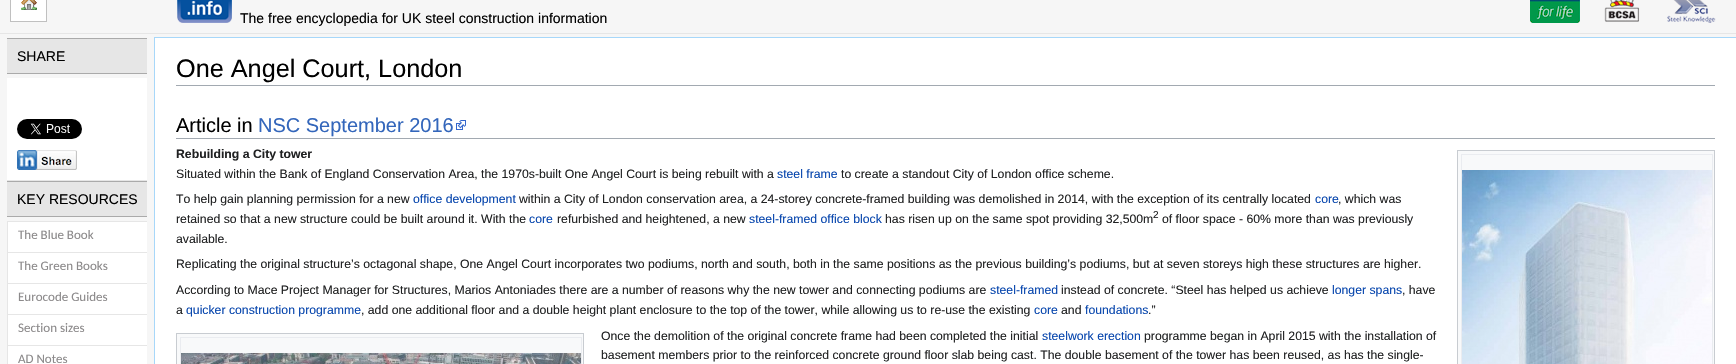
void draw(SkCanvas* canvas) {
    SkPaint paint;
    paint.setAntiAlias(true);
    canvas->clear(0xFFF6F6F6);
    paint.setColor(0xFFE6E6E6);
    canvas->drawRect(SkRect::MakeXYWH(0, 33, 1736, 1), paint);
    paint.setStyle(SkPaint::kStroke_Style);
    paint.setStrokeWidth(1);
    paint.setColor(0xFFC0C0C0);
    canvas->drawRect(SkRect::MakeXYWH(10.5f, -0.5f, 36, 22), paint);
    paint.setStyle(SkPaint::kFill_Style);
    paint.setColor(0xFFFFFFFF);
    canvas->drawRect(SkRect::MakeXYWH(11, 0, 35, 21), paint);
    canvas->drawImageRect(SkImages::DeferredFromEncodedData(SkData::MakeFromFileName("img1.png")), SkRect::MakeXYWH(21, 0, 16, 10), SkSamplingOptions());
    canvas->drawImageRect(SkImages::DeferredFromEncodedData(SkData::MakeFromFileName("img2.png")), SkRect::MakeXYWH(177, 0, 55, 23), SkSamplingOptions());
    SkFont font1(fontMgr->matchFamilyStyle("Liberation Sans", SkFontStyle::Normal()), 14);
    font1.setSubpixel(true);
    paint.setColor(0xFF000000);
    canvas->drawString("The free encyclopedia for UK steel construction information", 240, 23, font1, paint);
    canvas->drawImageRect(SkImages::DeferredFromEncodedData(SkData::MakeFromFileName("img3.png")), SkRect::MakeXYWH(1530, 0, 50, 23), SkSamplingOptions());
    canvas->drawImageRect(SkImages::DeferredFromEncodedData(SkData::MakeFromFileName("img4.png")), SkRect::MakeXYWH(1604, 0, 36, 22), SkSamplingOptions());
    canvas->drawImageRect(SkImages::DeferredFromEncodedData(SkData::MakeFromFileName("img5.png")), SkRect::MakeXYWH(1667, 0, 49, 23), SkSamplingOptions());
    paint.setColor(0xFFE6E6E6);
    canvas->drawRect(SkRect::MakeXYWH(7, 39, 140, 34), paint);
    paint.setColor(0xFFAAAAAA);
    canvas->drawRect(SkRect::MakeXYWH(7, 38, 140, 1), paint);
    canvas->drawRect(SkRect::MakeXYWH(7, 73, 140, 1), paint);
    paint.setColor(0xFF000000);
    canvas->drawString("SHARE", 17, 61, font1, paint);
    paint.setColor(0xFFFFFFFF);
    canvas->drawRect(SkRect::MakeXYWH(7, 78, 140, 102), paint);
    paint.setColor(0xFFE6E6E6);
    canvas->drawRect(SkRect::MakeXYWH(7, 180, 140, 1), paint);
    canvas->drawImageRect(SkImages::DeferredFromEncodedData(SkData::MakeFromFileName("img6.png")), SkRect::MakeXYWH(17, 119, 65, 20), SkSamplingOptions());
    canvas->drawImageRect(SkImages::DeferredFromEncodedData(SkData::MakeFromFileName("img7.png")), SkRect::MakeXYWH(17, 150, 60, 20), SkSamplingOptions());
    canvas->drawRect(SkRect::MakeXYWH(7, 182, 140, 34), paint);
    paint.setColor(0xFFAAAAAA);
    canvas->drawRect(SkRect::MakeXYWH(7, 181, 140, 1), paint);
    canvas->drawRect(SkRect::MakeXYWH(7, 216, 140, 1), paint);
    paint.setColor(0xFF000000);
    canvas->drawString("KEY RESOURCES", 17, 204, font1, paint);
    paint.setColor(0xFFFFFFFF);
    canvas->drawRect(SkRect::MakeXYWH(8, 222, 139, 30), paint);
    paint.setColor(0xFFE6E6E6);
    canvas->drawRect(SkRect::MakeXYWH(7, 221, 140, 1), paint);
    canvas->drawRect(SkRect::MakeXYWH(7, 221, 1, 31), paint);
    SkFont font2(fontMgr->matchFamilyStyle("Carlito", SkFontStyle::Normal()), 13);
    font2.setSubpixel(true);
    paint.setColor(0xFF8C8A8B);
    canvas->drawString("The Blue Book", 18, 239, font2, paint);
    paint.setColor(0xFFFFFFFF);
    canvas->drawRect(SkRect::MakeXYWH(8, 253, 139, 30), paint);
    paint.setColor(0xFFE6E6E6);
    canvas->drawRect(SkRect::MakeXYWH(7, 252, 140, 1), paint);
    canvas->drawRect(SkRect::MakeXYWH(7, 252, 1, 31), paint);
    paint.setColor(0xFF8C8A8B);
    canvas->drawString("The Green Books", 18, 270, font2, paint);
    paint.setColor(0xFFFFFFFF);
    canvas->drawRect(SkRect::MakeXYWH(8, 284, 139, 30), paint);
    paint.setColor(0xFFE6E6E6);
    canvas->drawRect(SkRect::MakeXYWH(7, 283, 140, 1), paint);
    canvas->drawRect(SkRect::MakeXYWH(7, 283, 1, 31), paint);
    paint.setColor(0xFF8C8A8B);
    canvas->drawString("Eurocode Guides", 18, 301, font2, paint);
    paint.setColor(0xFFFFFFFF);
    canvas->drawRect(SkRect::MakeXYWH(8, 315, 139, 30), paint);
    paint.setColor(0xFFE6E6E6);
    canvas->drawRect(SkRect::MakeXYWH(7, 314, 140, 1), paint);
    canvas->drawRect(SkRect::MakeXYWH(7, 314, 1, 31), paint);
    paint.setColor(0xFF8C8A8B);
    canvas->drawString("Section sizes", 18, 332, font2, paint);
    paint.setColor(0xFFFFFFFF);
    canvas->drawRect(SkRect::MakeXYWH(8, 346, 139, 18), paint);
    paint.setColor(0xFFE6E6E6);
    canvas->drawRect(SkRect::MakeXYWH(7, 345, 140, 1), paint);
    canvas->drawRect(SkRect::MakeXYWH(7, 345, 1, 19), paint);
    paint.setColor(0xFF8C8A8B);
    canvas->drawString("AD Notes", 18, 363, font2, paint);
    paint.setColor(0xFFFFFFFF);
    canvas->drawRect(SkRect::MakeXYWH(155, 38, 1581, 326), paint);
    paint.setColor(0xFFA7D7F9);
    canvas->drawRect(SkRect::MakeXYWH(154, 37, 1582, 1), paint);
    canvas->drawRect(SkRect::MakeXYWH(154, 37, 1, 327), paint);
    paint.setColor(0xFFA2A9B1);
    canvas->drawRect(SkRect::MakeXYWH(176, 85, 1539, 1), paint);
    SkFont font3(fontMgr->matchFamilyStyle("Liberation Sans", SkFontStyle::Normal()), 25.25f);
    font3.setSubpixel(true);
    paint.setColor(0xFF000000);
    canvas->drawString("One Angel Court, London", 176, 77, font3, paint);
    paint.setColor(0xFFA2A9B1);
    canvas->drawRect(SkRect::MakeXYWH(176, 138, 1539, 1), paint);
    SkFont font4(fontMgr->matchFamilyStyle("Liberation Sans", SkFontStyle::Normal()), 20);
    font4.setSubpixel(true);
    paint.setColor(0xFF000000);
    canvas->drawString("Article in", 176, 132, font4, paint);
    paint.setColor(0xFF3366BB);
    canvas->drawString("NSC September 2016", 258, 132, font4, paint);
    canvas->drawImageRect(SkImages::DeferredFromEncodedData(SkData::MakeFromFileName("img8.png")), SkRect::MakeXYWH(456, 120, 10, 10), SkSamplingOptions());
    SkFont font5(fontMgr->matchFamilyStyle("Liberation Sans", SkFontStyle::Bold()), 12.25f);
    font5.setSubpixel(true);
    paint.setColor(0xFF202122);
    canvas->drawString("Rebuilding a City tower", 176, 158, font5, paint);
    SkFont font6(fontMgr->matchFamilyStyle("Liberation Sans", SkFontStyle::Normal()), 12.25f);
    font6.setSubpixel(true);
    canvas->drawString("Situated within the Bank of England Conservation Area, the 1970s-built One Angel Court is being rebuilt with a", 176, 178, font6, paint);
    paint.setColor(0xFF0645AD);
    canvas->drawString("steel frame", 777, 178, font6, paint);
    paint.setColor(0xFF202122);
    canvas->drawString("to create a standout City of London office scheme.", 841, 178, font6, paint);
    paint.setColor(0xFFF8F9FA);
    canvas->drawRect(SkRect::MakeXYWH(1457.5f, 150.5f, 257, 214), paint);
    paint.setStyle(SkPaint::kStroke_Style);
    paint.setColor(0xFFC8CCD1);
    canvas->drawRect(SkRect::MakeXYWH(1457.5f, 150.5f, 257, 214), paint);
    paint.setColor(0xFFEAECF0);
    canvas->drawRect(SkRect::MakeXYWH(1461.5f, 154.5f, 251, 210), paint);
    canvas->drawImageRect(SkImages::DeferredFromEncodedData(SkData::MakeFromFileName("img9.png")), SkRect::MakeXYWH(1462, 170, 250, 194), SkSamplingOptions());
    paint.setStyle(SkPaint::kFill_Style);
    paint.setColor(0xFF202122);
    canvas->drawString("To help gain planning permission for a new", 176, 203, font6, paint);
    paint.setColor(0xFF0645AD);
    canvas->drawString("office development", 413, 203, font6, paint);
    paint.setColor(0xFF202122);
    canvas->drawString("within a City of London conservation area, a 24-storey concrete-framed building was demolished in 2014, with the exception of its centrally located", 519, 203, font6, paint);
    paint.setColor(0xFF0645AD);
    canvas->drawString("core", 1315, 203, font6, paint);
    paint.setColor(0xFF202122);
    canvas->drawString(", which was", 1338, 203, font6, paint);
    canvas->drawString("retained so that a new structure could be built around it. With the", 176, 223, font6, paint);
    paint.setColor(0xFF0645AD);
    canvas->drawString("core", 529, 223, font6, paint);
    paint.setColor(0xFF202122);
    canvas->drawString("refurbished and heightened, a new", 557, 223, font6, paint);
    paint.setColor(0xFF0645AD);
    canvas->drawString("steel-framed office block", 749, 223, font6, paint);
    paint.setColor(0xFF202122);
    canvas->drawString("has risen up on the same spot providing 32,500m", 885, 223, font6, paint);
    SkFont font7(fontMgr->matchFamilyStyle("Liberation Sans", SkFontStyle::Normal()), 10);
    font7.setSubpixel(true);
    canvas->drawString("2", 1153, 218, font7, paint);
    canvas->drawString("of floor space - 60% more than was previously", 1162, 223, font6, paint);
    canvas->drawString("available.", 176, 243, font6, paint);
    canvas->drawString("Replicating the original structure’s octagonal shape, One Angel Court incorporates two podiums, north and south, both in the same positions as the previous building’s podiums, but at seven storeys high these structures are higher.", 176, 268, font6, paint);
    canvas->drawString("According to Mace Project Manager for Structures, Marios Antoniades there are a number of reasons why the new tower and connecting podiums are", 176, 294, font6, paint);
    paint.setColor(0xFF0645AD);
    canvas->drawString("steel-framed", 990, 294, font6, paint);
    paint.setColor(0xFF202122);
    canvas->drawString("instead of concrete. “Steel has helped us achieve", 1061, 294, font6, paint);
    paint.setColor(0xFF0645AD);
    canvas->drawString("longer spans", 1332, 294, font6, paint);
    paint.setColor(0xFF202122);
    canvas->drawString(", have", 1402, 294, font6, paint);
    canvas->drawString("a", 176, 314, font6, paint);
    paint.setColor(0xFF0645AD);
    canvas->drawString("quicker construction programme", 186, 314, font6, paint);
    paint.setColor(0xFF202122);
    canvas->drawString(", add one additional floor and a double height plant enclosure to the top of the tower, while allowing us to re-use the existing", 361, 314, font6, paint);
    paint.setColor(0xFF0645AD);
    canvas->drawString("core", 1034, 314, font6, paint);
    paint.setColor(0xFF202122);
    canvas->drawString("and", 1061, 314, font6, paint);
    paint.setColor(0xFF0645AD);
    canvas->drawString("foundations", 1085, 314, font6, paint);
    paint.setColor(0xFF202122);
    canvas->drawString(".”", 1148, 314, font6, paint);
    paint.setColor(0xFFF8F9FA);
    canvas->drawRect(SkRect::MakeXYWH(176.5f, 333.5f, 407, 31), paint);
    paint.setStyle(SkPaint::kStroke_Style);
    paint.setColor(0xFFC8CCD1);
    canvas->drawRect(SkRect::MakeXYWH(176.5f, 333.5f, 407, 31), paint);
    paint.setColor(0xFFEAECF0);
    canvas->drawRect(SkRect::MakeXYWH(180.5f, 337.5f, 401, 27), paint);
    canvas->drawImageRect(SkImages::DeferredFromEncodedData(SkData::MakeFromFileName("img10.png")), SkRect::MakeXYWH(181, 353, 400, 11), SkSamplingOptions());
    paint.setStyle(SkPaint::kFill_Style);
    paint.setColor(0xFF202122);
    canvas->drawString("Once the demolition of the original concrete frame had been completed the initial", 601, 340, font6, paint);
    paint.setColor(0xFF0645AD);
    canvas->drawString("steelwork erection", 1042, 340, font6, paint);
    paint.setColor(0xFF202122);
    canvas->drawString("programme began in April 2015 with the installation of", 1144, 340, font6, paint);
    canvas->drawString("basement members prior to the reinforced concrete ground floor slab being cast. The double basement of the tower has been reused, as has the single-", 601, 359, font6, paint);
}
